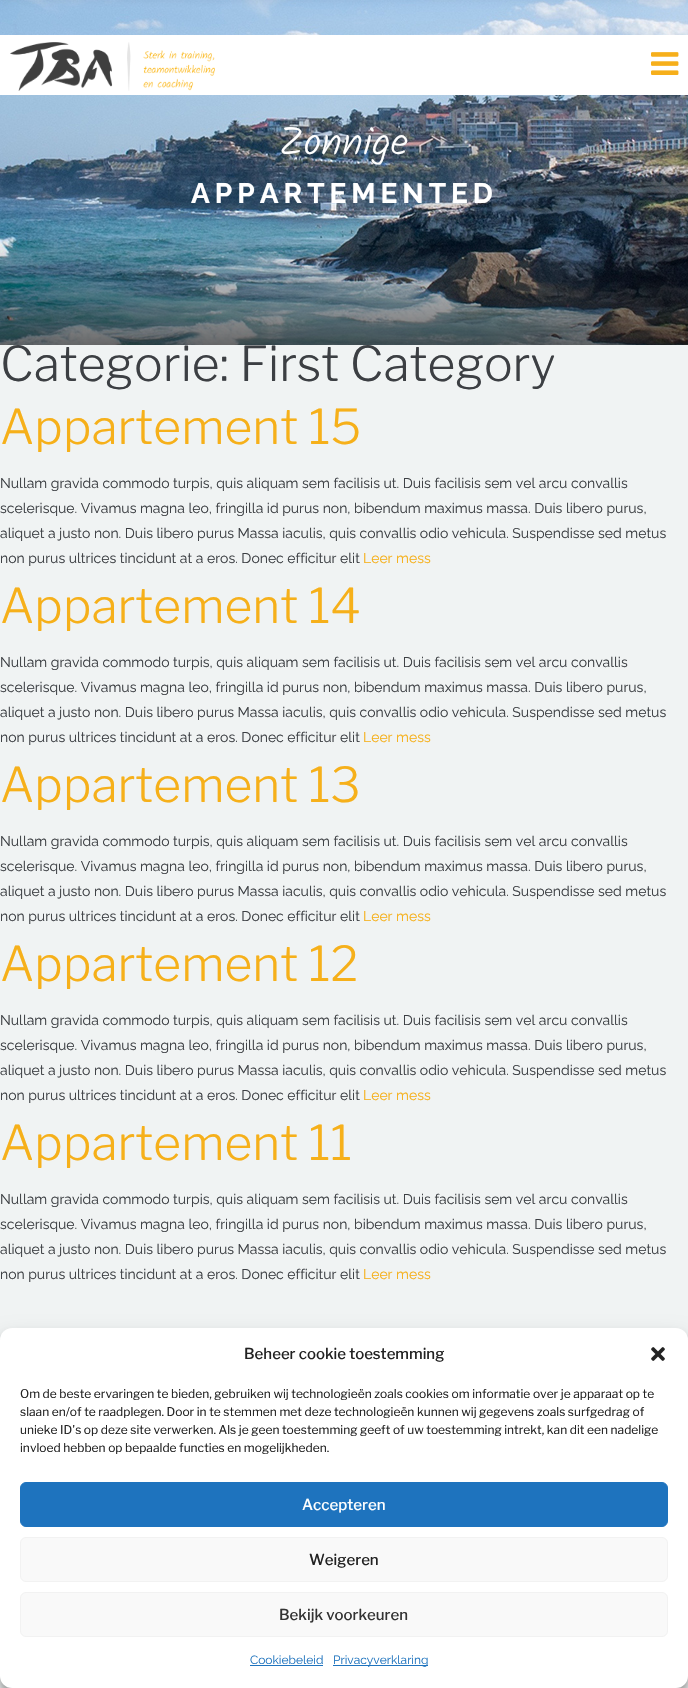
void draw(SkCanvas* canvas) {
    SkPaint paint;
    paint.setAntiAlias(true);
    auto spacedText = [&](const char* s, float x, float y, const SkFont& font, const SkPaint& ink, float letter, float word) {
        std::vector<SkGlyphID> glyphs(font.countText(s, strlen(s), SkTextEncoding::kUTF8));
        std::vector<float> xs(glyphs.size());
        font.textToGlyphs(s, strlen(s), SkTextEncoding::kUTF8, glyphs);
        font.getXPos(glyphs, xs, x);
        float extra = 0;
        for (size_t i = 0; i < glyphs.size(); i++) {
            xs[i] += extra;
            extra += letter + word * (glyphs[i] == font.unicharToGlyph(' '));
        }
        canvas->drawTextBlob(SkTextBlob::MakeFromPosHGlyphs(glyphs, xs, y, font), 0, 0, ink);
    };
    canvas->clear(0xFFF0F3F3);
    canvas->drawImageRect(SkImages::DeferredFromEncodedData(SkData::MakeFromFileName("img3.png")), SkRect::MakeXYWH(0, 0, 688, 345), SkSamplingOptions());
    paint.setColor(0xFFFFFFFF);
    canvas->drawRect(SkRect::MakeXYWH(0, 35, 688, 60), paint);
    canvas->drawImageRect(SkImages::DeferredFromEncodedData(SkData::MakeFromFileName("img1.png")), SkRect::MakeXYWH(10, 42, 205, 49), SkSamplingOptions());
    canvas->drawImageRect(SkImages::DeferredFromEncodedData(SkData::MakeFromFileName("img2.png")), SkRect::MakeXYWH(651, 52, 28, 23), SkSamplingOptions());
    SkFont font1(fontMgr->matchFamilyStyle("Kalam", SkFontStyle(300, SkFontStyle::kNormal_Width, SkFontStyle::kUpright_Slant)), 40);
    font1.setSubpixel(true);
    canvas->drawString("Zonnige", 279, 155, font1, paint);
    SkFont font2(fontMgr->matchFamilyStyle("Raleway", SkFontStyle::Bold()), 28);
    font2.setSubpixel(true);
    spacedText("APPARTEMENTED", 191, 203, font2, paint, 5, 0);
    {
        const SkColor colors[] = {0x001E5799, 0x00000000, 0x96000000};
        const float stops[] = {0, 0.68f, 1};
        const SkPoint ends[] = {{344, 0}, {344, 345}};
        paint.setShader(SkGradientShader::MakeLinear(ends, colors, stops, 3, SkTileMode::kClamp));
        paint.setAlpha(255);
    }
    canvas->drawRect(SkRect::MakeXYWH(0, 239, 688, 106), paint);
    SkFont font3(fontMgr->matchFamilyStyle("Libre Franklin", SkFontStyle(300, SkFontStyle::kNormal_Width, SkFontStyle::kUpright_Slant)), 48);
    font3.setSubpixel(true);
    paint.setShader(nullptr);
    paint.setColor(0xFF3C3F43);
    canvas->drawString("Categorie: First Category", 0, 381, font3, paint);
    paint.setColor(0xFFF6B01A);
    canvas->drawString("Appartement 15", 0, 444, font3, paint);
    SkFont font4(fontMgr->matchFamilyStyle("Raleway", SkFontStyle::Normal()), 14);
    font4.setSubpixel(true);
    paint.setColor(0xFF3C3F43);
    canvas->drawString("Nullam gravida commodo turpis, quis aliquam sem facilisis ut. Duis facilisis sem vel arcu convallis", 0, 488, font4, paint);
    canvas->drawString("scelerisque. Vivamus magna leo, fringilla id purus non, bibendum maximus massa. Duis libero purus,", 0, 513, font4, paint);
    canvas->drawString("aliquet a justo non. Duis libero purus Massa iaculis, quis convallis odio vehicula. Suspendisse sed metus", 0, 538, font4, paint);
    canvas->drawString("non purus ultrices tincidunt at a eros. Donec efficitur elit", 0, 563, font4, paint);
    paint.setColor(0xFFF6B01A);
    canvas->drawString("Leer mess", 363, 563, font4, paint);
    canvas->drawString("Appartement 14", 0, 623, font3, paint);
    paint.setColor(0xFF3C3F43);
    canvas->drawString("Nullam gravida commodo turpis, quis aliquam sem facilisis ut. Duis facilisis sem vel arcu convallis", 0, 667, font4, paint);
    canvas->drawString("scelerisque. Vivamus magna leo, fringilla id purus non, bibendum maximus massa. Duis libero purus,", 0, 692, font4, paint);
    canvas->drawString("aliquet a justo non. Duis libero purus Massa iaculis, quis convallis odio vehicula. Suspendisse sed metus", 0, 717, font4, paint);
    canvas->drawString("non purus ultrices tincidunt at a eros. Donec efficitur elit", 0, 742, font4, paint);
    paint.setColor(0xFFF6B01A);
    canvas->drawString("Leer mess", 363, 742, font4, paint);
    canvas->drawString("Appartement 13", 0, 802, font3, paint);
    paint.setColor(0xFF3C3F43);
    canvas->drawString("Nullam gravida commodo turpis, quis aliquam sem facilisis ut. Duis facilisis sem vel arcu convallis", 0, 846, font4, paint);
    canvas->drawString("scelerisque. Vivamus magna leo, fringilla id purus non, bibendum maximus massa. Duis libero purus,", 0, 871, font4, paint);
    canvas->drawString("aliquet a justo non. Duis libero purus Massa iaculis, quis convallis odio vehicula. Suspendisse sed metus", 0, 896, font4, paint);
    canvas->drawString("non purus ultrices tincidunt at a eros. Donec efficitur elit", 0, 921, font4, paint);
    paint.setColor(0xFFF6B01A);
    canvas->drawString("Leer mess", 363, 921, font4, paint);
    canvas->drawString("Appartement 12", 0, 981, font3, paint);
    paint.setColor(0xFF3C3F43);
    canvas->drawString("Nullam gravida commodo turpis, quis aliquam sem facilisis ut. Duis facilisis sem vel arcu convallis", 0, 1025, font4, paint);
    canvas->drawString("scelerisque. Vivamus magna leo, fringilla id purus non, bibendum maximus massa. Duis libero purus,", 0, 1050, font4, paint);
    canvas->drawString("aliquet a justo non. Duis libero purus Massa iaculis, quis convallis odio vehicula. Suspendisse sed metus", 0, 1075, font4, paint);
    canvas->drawString("non purus ultrices tincidunt at a eros. Donec efficitur elit", 0, 1100, font4, paint);
    paint.setColor(0xFFF6B01A);
    canvas->drawString("Leer mess", 363, 1100, font4, paint);
    canvas->drawString("Appartement 11", 0, 1160, font3, paint);
    paint.setColor(0xFF3C3F43);
    canvas->drawString("Nullam gravida commodo turpis, quis aliquam sem facilisis ut. Duis facilisis sem vel arcu convallis", 0, 1204, font4, paint);
    canvas->drawString("scelerisque. Vivamus magna leo, fringilla id purus non, bibendum maximus massa. Duis libero purus,", 0, 1229, font4, paint);
    canvas->drawString("aliquet a justo non. Duis libero purus Massa iaculis, quis convallis odio vehicula. Suspendisse sed metus", 0, 1254, font4, paint);
    canvas->drawString("non purus ultrices tincidunt at a eros. Donec efficitur elit", 0, 1279, font4, paint);
    paint.setColor(0xFFF6B01A);
    canvas->drawString("Leer mess", 363, 1279, font4, paint);
    paint.setColor(0x3B000000);
    paint.setMaskFilter(SkMaskFilter::MakeBlur(kNormal_SkBlurStyle, 3));
    canvas->drawRoundRect(SkRect::MakeXYWH(0, 1334, 688, 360), 12, 12, paint);
    paint.setMaskFilter(nullptr);
    paint.setColor(0x30000000);
    paint.setMaskFilter(SkMaskFilter::MakeBlur(kNormal_SkBlurStyle, 10));
    canvas->drawRoundRect(SkRect::MakeXYWH(0, 1338, 688, 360), 12, 12, paint);
    paint.setMaskFilter(nullptr);
    paint.setColor(0xFFFFFFFF);
    canvas->drawRoundRect(SkRect::MakeXYWH(0, 1328, 688, 360), 12, 12, paint);
    SkFont font5(fontMgr->matchFamilyStyle("Libre Franklin", SkFontStyle(500, SkFontStyle::kNormal_Width, SkFontStyle::kUpright_Slant)), 15);
    font5.setSubpixel(true);
    paint.setColor(0xFF222222);
    canvas->drawString("Beheer cookie toestemming", 244, 1359, font5, paint);
    canvas->drawImageRect(SkImages::DeferredFromEncodedData(SkData::MakeFromFileName("img4.png")), SkRect::MakeXYWH(651, 1347, 14, 14), SkSamplingOptions());
    SkFont font6(fontMgr->matchFamilyStyle("Libre Franklin", SkFontStyle::Normal()), 12);
    font6.setSubpixel(true);
    canvas->drawString("Om de beste ervaringen te bieden, gebruiken wij technologieën zoals cookies om informatie over je apparaat op te", 20, 1398, font6, paint);
    canvas->drawString("slaan en/of te raadplegen. Door in te stemmen met deze technologieën kunnen wij gegevens zoals surfgedrag of", 20, 1416, font6, paint);
    canvas->drawString("unieke ID's op deze site verwerken. Als je geen toestemming geeft of uw toestemming intrekt, kan dit een nadelige", 20, 1434, font6, paint);
    canvas->drawString("invloed hebben op bepaalde functies en mogelijkheden.", 20, 1452, font6, paint);
    paint.setColor(0xFF1E73BE);
    canvas->drawRoundRect(SkRect::MakeXYWH(20.5f, 1482.5f, 647, 44), 5.5f, 5.5f, paint);
    paint.setStyle(SkPaint::kStroke_Style);
    paint.setStrokeWidth(1);
    canvas->drawRoundRect(SkRect::MakeXYWH(20.5f, 1482.5f, 647, 44), 5.5f, 5.5f, paint);
    paint.setStyle(SkPaint::kFill_Style);
    paint.setColor(0xFFFFFFFF);
    canvas->drawString("Accepteren", 302, 1510, font5, paint);
    paint.setColor(0xFFF9F9F9);
    canvas->drawRoundRect(SkRect::MakeXYWH(20.5f, 1537.5f, 647, 44), 5.5f, 5.5f, paint);
    paint.setStyle(SkPaint::kStroke_Style);
    paint.setColor(0xFFF2F2F2);
    canvas->drawRoundRect(SkRect::MakeXYWH(20.5f, 1537.5f, 647, 44), 5.5f, 5.5f, paint);
    paint.setStyle(SkPaint::kFill_Style);
    paint.setColor(0xFF222222);
    canvas->drawString("Weigeren", 309, 1565, font5, paint);
    paint.setColor(0xFFF9F9F9);
    canvas->drawRoundRect(SkRect::MakeXYWH(20.5f, 1592.5f, 647, 44), 5.5f, 5.5f, paint);
    paint.setStyle(SkPaint::kStroke_Style);
    paint.setColor(0xFFF2F2F2);
    canvas->drawRoundRect(SkRect::MakeXYWH(20.5f, 1592.5f, 647, 44), 5.5f, 5.5f, paint);
    paint.setStyle(SkPaint::kFill_Style);
    paint.setColor(0xFF333333);
    canvas->drawString("Bekijk voorkeuren", 279, 1620, font5, paint);
    SkFont font7(fontMgr->matchFamilyStyle("Raleway", SkFontStyle::Normal()), 12);
    font7.setSubpixel(true);
    paint.setColor(0xFF1E73BE);
    canvas->drawString("Cookiebeleid", 250, 1664, font7, paint);
    canvas->drawRect(SkRect::MakeXYWH(250, 1665, 73, 1), paint);
    canvas->drawRect(SkRect::MakeXYWH(333, 1665, 95, 1), paint);
    canvas->drawString("Privacyverklaring", 333, 1664, font7, paint);
}
